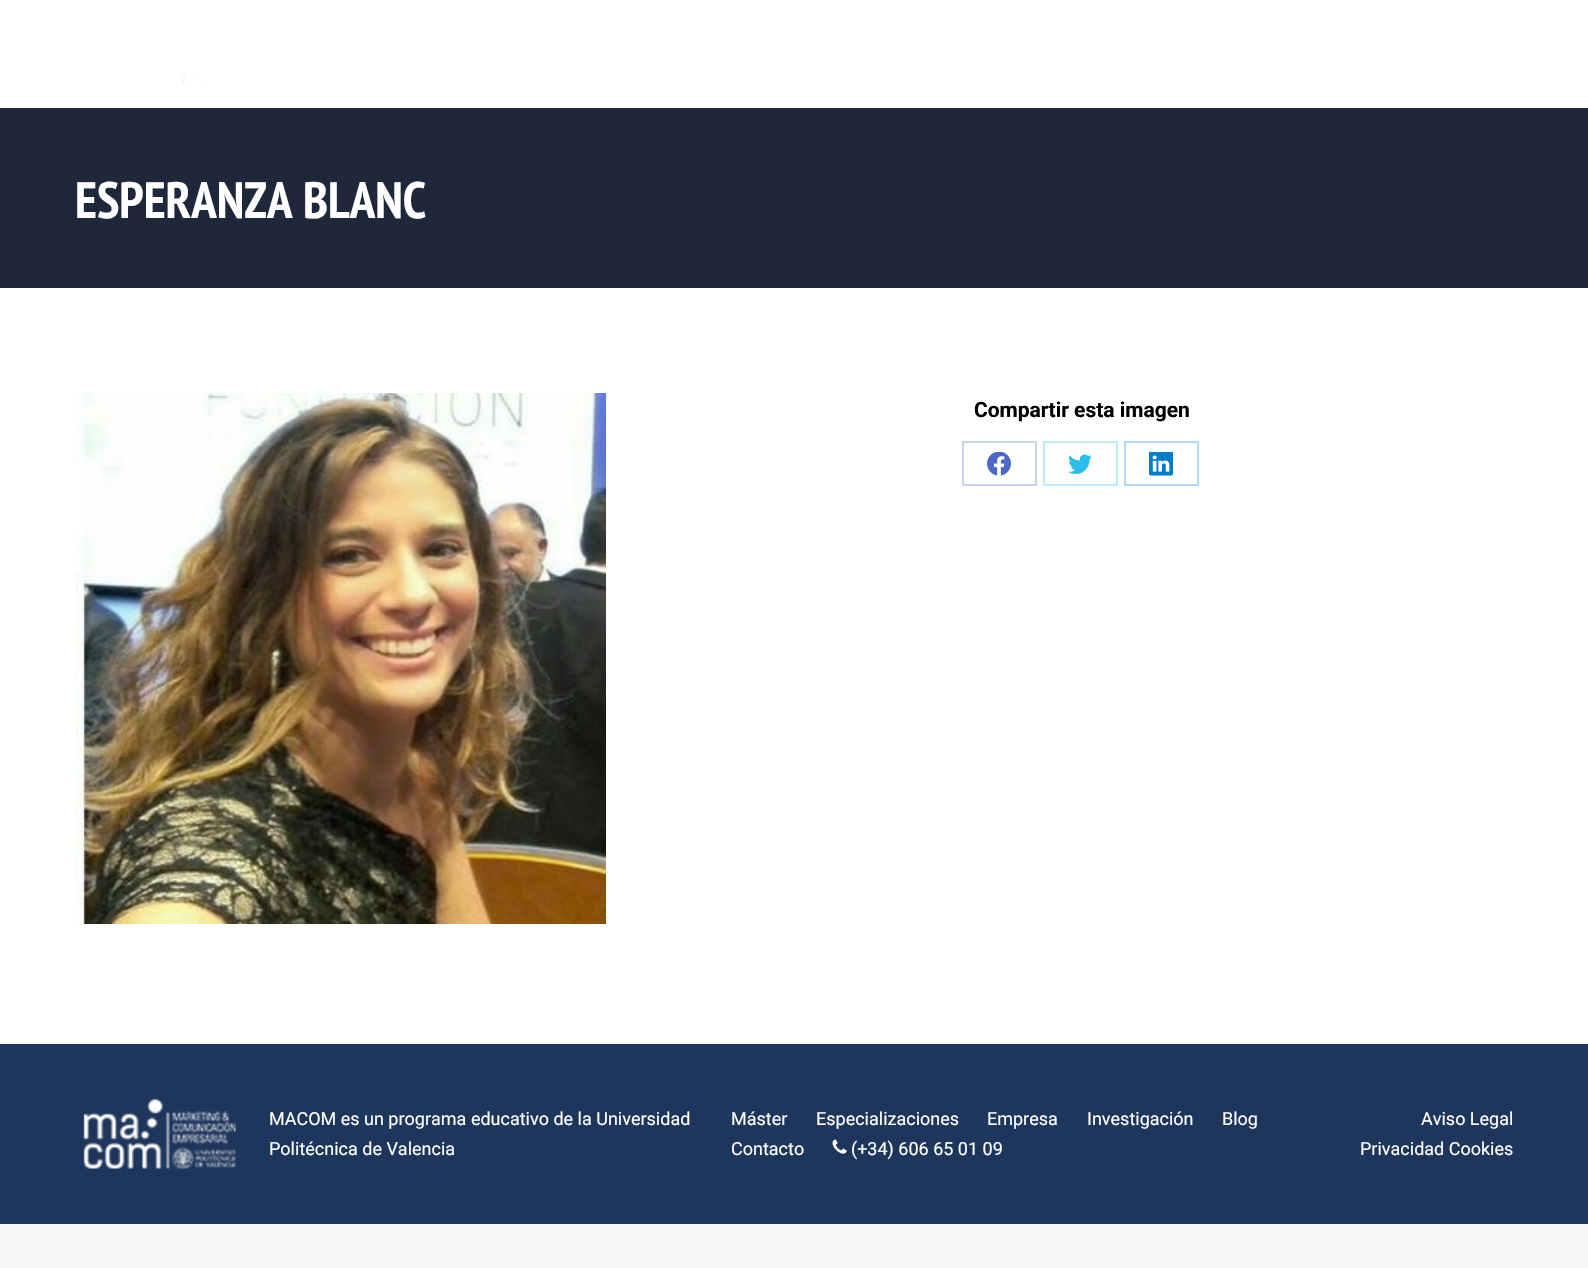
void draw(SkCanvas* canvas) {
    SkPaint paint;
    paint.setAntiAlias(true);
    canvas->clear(0xFFF7F7F7);
    paint.setColor(0xFFFFFFFF);
    canvas->drawRect(SkRect::MakeXYWH(0, 288, 1588, 756), paint);
    canvas->drawRect(SkRect::MakeXYWH(0, 0, 1588, 108), paint);
    canvas->drawImageRect(SkImages::DeferredFromEncodedData(SkData::MakeFromFileName("img1.png")), SkRect::MakeXYWH(180, 73, 21, 13), SkSamplingOptions());
    paint.setColor(0xFF1E283A);
    canvas->drawRect(SkRect::MakeXYWH(0, 108, 1588, 180), paint);
    SkFont font1(fontMgr->matchFamilyStyle("PT Sans Narrow", SkFontStyle::Bold()), 51);
    font1.setSubpixel(true);
    paint.setColor(0xFFFFFFFF);
    canvas->drawString("ESPERANZA BLANC", 75, 218, font1, paint);
    canvas->drawImageRect(SkImages::DeferredFromEncodedData(SkData::MakeFromFileName("img2.png")), SkRect::MakeXYWH(75, 393, 531, 531), SkSamplingOptions());
    SkFont font2(fontMgr->matchFamilyStyle("Roboto", SkFontStyle::Bold()), 21);
    font2.setSubpixel(true);
    paint.setColor(0xFF000000);
    canvas->drawString("Compartir esta imagen", 974, 417, font2, paint);
    paint.setStyle(SkPaint::kStroke_Style);
    paint.setStrokeWidth(2);
    paint.setColor(0xFFC9D2EE);
    canvas->drawRect(SkRect::MakeXYWH(963, 442, 73, 43), paint);
    canvas->drawImageRect(SkImages::DeferredFromEncodedData(SkData::MakeFromFileName("img3.png")), SkRect::MakeXYWH(987, 452, 24, 24), SkSamplingOptions());
    paint.setColor(0xFFBFECF9);
    canvas->drawRect(SkRect::MakeXYWH(1044, 442, 73, 43), paint);
    canvas->drawImageRect(SkImages::DeferredFromEncodedData(SkData::MakeFromFileName("img4.png")), SkRect::MakeXYWH(1068, 454, 24, 20), SkSamplingOptions());
    paint.setColor(0xFFB3D7EE);
    canvas->drawRect(SkRect::MakeXYWH(1125, 442, 73, 43), paint);
    canvas->drawImageRect(SkImages::DeferredFromEncodedData(SkData::MakeFromFileName("img5.png")), SkRect::MakeXYWH(1149, 452, 24, 24), SkSamplingOptions());
    paint.setStyle(SkPaint::kFill_Style);
    paint.setColor(0xFF1F365C);
    canvas->drawRect(SkRect::MakeXYWH(0, 1044, 1588, 180), paint);
    canvas->drawImageRect(SkImages::DeferredFromEncodedData(SkData::MakeFromFileName("img6.png")), SkRect::MakeXYWH(83, 1099, 153, 70), SkSamplingOptions());
    SkFont font3(fontMgr->matchFamilyStyle("Roboto", SkFontStyle::Normal()), 18);
    font3.setSubpixel(true);
    paint.setColor(0xFFFFFFFF);
    canvas->drawString("MACOM es un programa educativo de la Universidad", 269, 1125, font3, paint);
    canvas->drawString("Politécnica de Valencia", 269, 1155, font3, paint);
    canvas->drawString("Máster", 731, 1125, font3, paint);
    canvas->drawString("Especializaciones", 816, 1125, font3, paint);
    canvas->drawString("Empresa", 987, 1125, font3, paint);
    canvas->drawString("Investigación", 1087, 1125, font3, paint);
    canvas->drawString("Blog", 1222, 1125, font3, paint);
    canvas->drawString("Contacto", 731, 1155, font3, paint);
    canvas->drawImageRect(SkImages::DeferredFromEncodedData(SkData::MakeFromFileName("img7.png")), SkRect::MakeXYWH(832, 1139, 15, 15), SkSamplingOptions());
    canvas->drawString("(+34) 606 65 01 09", 851, 1155, font3, paint);
    canvas->drawString("Aviso Legal", 1421, 1125, font3, paint);
    canvas->drawString("Privacidad Cookies", 1360, 1155, font3, paint);
}
